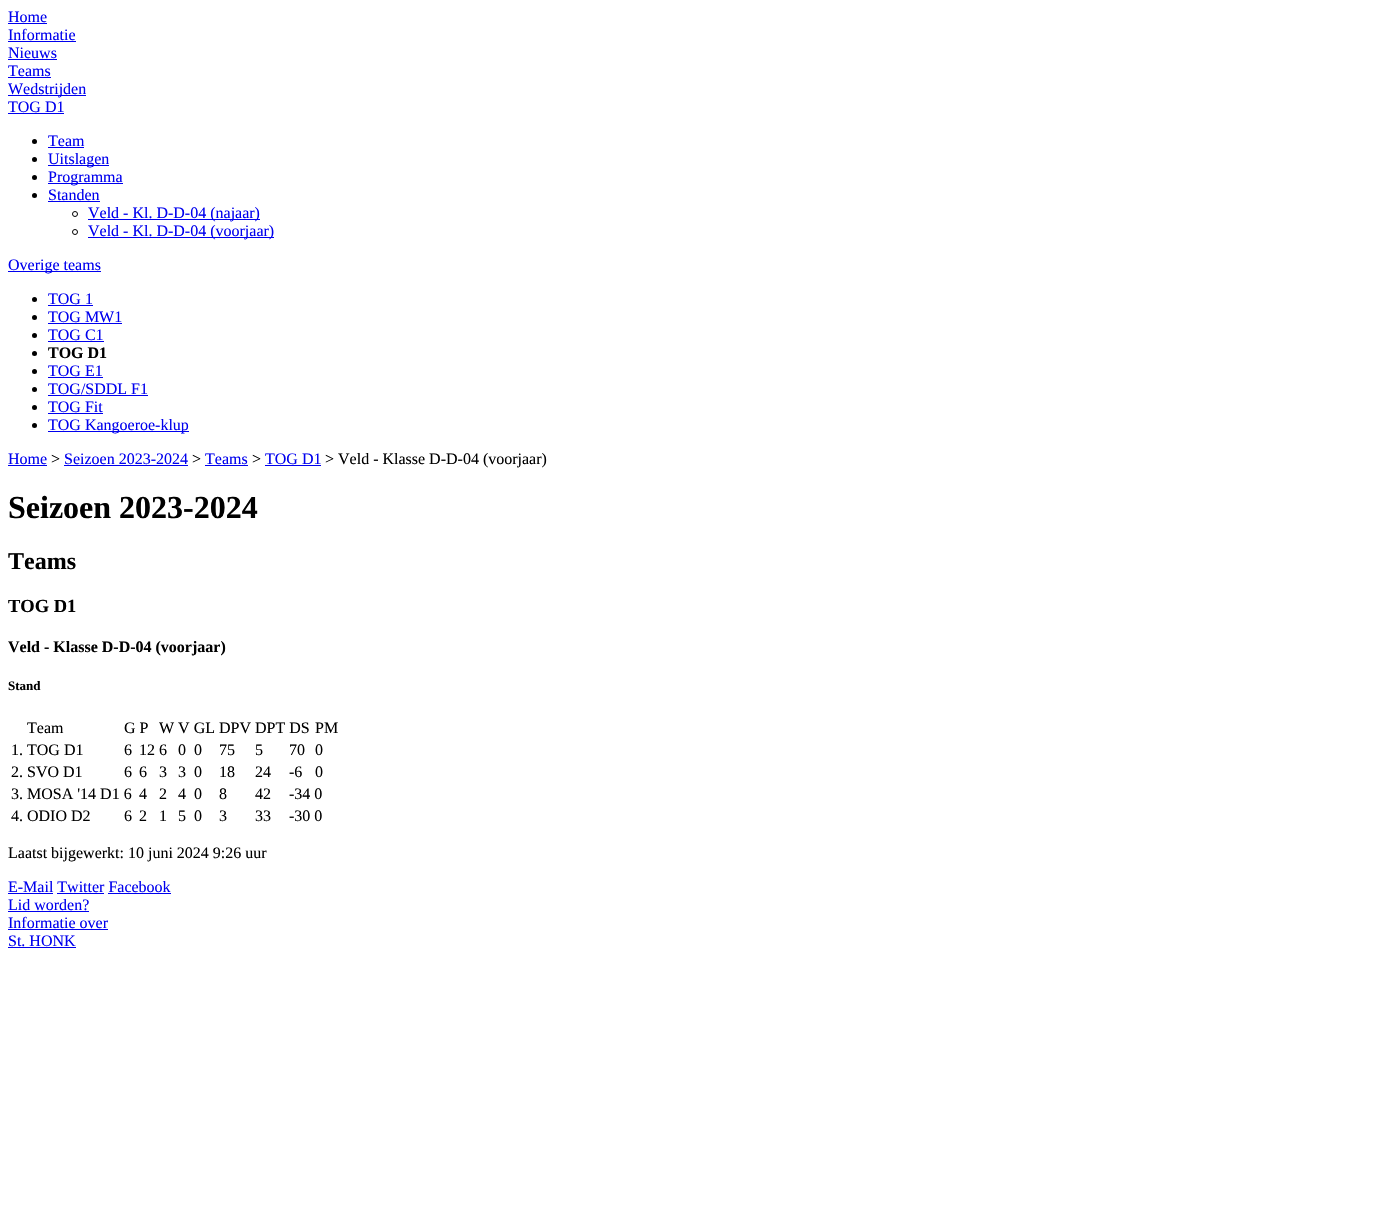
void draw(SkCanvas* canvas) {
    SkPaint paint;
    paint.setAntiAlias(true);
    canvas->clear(0xFFFFFFFF);
    SkFont font1(fontMgr->matchFamilyStyle("Liberation Serif", SkFontStyle::Normal()), 16);
    font1.setSubpixel(true);
    paint.setColor(0xFF0000EE);
    canvas->drawString("Home", 8, 22, font1, paint);
    canvas->drawRect(SkRect::MakeXYWH(8, 23, 39, 1), paint);
    canvas->drawString("Informatie", 8, 40, font1, paint);
    canvas->drawRect(SkRect::MakeXYWH(8, 41, 68, 1), paint);
    canvas->drawString("Nieuws", 8, 58, font1, paint);
    canvas->drawRect(SkRect::MakeXYWH(8, 59, 49, 1), paint);
    canvas->drawString("Teams", 8, 76, font1, paint);
    canvas->drawRect(SkRect::MakeXYWH(8, 77, 43, 1), paint);
    canvas->drawRect(SkRect::MakeXYWH(8, 95, 78, 1), paint);
    canvas->drawString("Wedstrijden", 8, 94, font1, paint);
    canvas->drawString("TOG D1", 8, 112, font1, paint);
    canvas->drawRect(SkRect::MakeXYWH(8, 113, 56, 1), paint);
    paint.setColor(0xFF000000);
    canvas->drawCircle(34.5f, 141.5f, 2.5f, paint);
    paint.setColor(0xFF0000EE);
    canvas->drawString("Team", 48, 146, font1, paint);
    canvas->drawRect(SkRect::MakeXYWH(48, 147, 36, 1), paint);
    paint.setColor(0xFF000000);
    canvas->drawCircle(34.5f, 159.5f, 2.5f, paint);
    paint.setColor(0xFF0000EE);
    canvas->drawRect(SkRect::MakeXYWH(48, 165, 61, 1), paint);
    canvas->drawString("Uitslagen", 48, 164, font1, paint);
    paint.setColor(0xFF000000);
    canvas->drawCircle(34.5f, 177.5f, 2.5f, paint);
    paint.setColor(0xFF0000EE);
    canvas->drawRect(SkRect::MakeXYWH(48, 183, 75, 1), paint);
    canvas->drawString("Programma", 48, 182, font1, paint);
    paint.setColor(0xFF000000);
    canvas->drawCircle(34.5f, 195.5f, 2.5f, paint);
    paint.setColor(0xFF0000EE);
    canvas->drawString("Standen", 48, 200, font1, paint);
    canvas->drawRect(SkRect::MakeXYWH(48, 201, 52, 1), paint);
    paint.setStyle(SkPaint::kStroke_Style);
    paint.setStrokeWidth(1);
    paint.setColor(0xFF000000);
    canvas->drawCircle(75, 214, 2.5f, paint);
    paint.setStyle(SkPaint::kFill_Style);
    paint.setColor(0xFF0000EE);
    canvas->drawRect(SkRect::MakeXYWH(88, 219, 172, 1), paint);
    canvas->drawString("Veld - Kl. D-D-04 (najaar)", 88, 218, font1, paint);
    paint.setStyle(SkPaint::kStroke_Style);
    paint.setColor(0xFF000000);
    canvas->drawCircle(75, 232, 2.5f, paint);
    paint.setStyle(SkPaint::kFill_Style);
    paint.setColor(0xFF0000EE);
    canvas->drawRect(SkRect::MakeXYWH(88, 237, 186, 1), paint);
    canvas->drawString("Veld - Kl. D-D-04 (voorjaar)", 88, 236, font1, paint);
    canvas->drawRect(SkRect::MakeXYWH(8, 271, 93, 1), paint);
    canvas->drawString("Overige teams", 8, 270, font1, paint);
    paint.setColor(0xFF000000);
    canvas->drawCircle(34.5f, 299.5f, 2.5f, paint);
    paint.setColor(0xFF0000EE);
    canvas->drawString("TOG 1", 48, 304, font1, paint);
    canvas->drawRect(SkRect::MakeXYWH(48, 305, 45, 1), paint);
    paint.setColor(0xFF000000);
    canvas->drawCircle(34.5f, 317.5f, 2.5f, paint);
    paint.setColor(0xFF0000EE);
    canvas->drawString("TOG MW1", 48, 322, font1, paint);
    canvas->drawRect(SkRect::MakeXYWH(48, 323, 74, 1), paint);
    paint.setColor(0xFF000000);
    canvas->drawCircle(34.5f, 335.5f, 2.5f, paint);
    paint.setColor(0xFF0000EE);
    canvas->drawString("TOG C1", 48, 340, font1, paint);
    canvas->drawRect(SkRect::MakeXYWH(48, 341, 56, 1), paint);
    paint.setColor(0xFF000000);
    canvas->drawCircle(34.5f, 353.5f, 2.5f, paint);
    SkFont font2(fontMgr->matchFamilyStyle("Liberation Serif", SkFontStyle::Bold()), 16);
    font2.setSubpixel(true);
    canvas->drawString("TOG D1", 48, 358, font2, paint);
    canvas->drawCircle(34.5f, 371.5f, 2.5f, paint);
    paint.setColor(0xFF0000EE);
    canvas->drawString("TOG E1", 48, 376, font1, paint);
    canvas->drawRect(SkRect::MakeXYWH(48, 377, 55, 1), paint);
    paint.setColor(0xFF000000);
    canvas->drawCircle(34.5f, 389.5f, 2.5f, paint);
    paint.setColor(0xFF0000EE);
    canvas->drawString("TOG/SDDL F1", 48, 394, font1, paint);
    canvas->drawRect(SkRect::MakeXYWH(48, 395, 100, 1), paint);
    paint.setColor(0xFF000000);
    canvas->drawCircle(34.5f, 407.5f, 2.5f, paint);
    paint.setColor(0xFF0000EE);
    canvas->drawString("TOG Fit", 48, 412, font1, paint);
    canvas->drawRect(SkRect::MakeXYWH(48, 413, 55, 1), paint);
    paint.setColor(0xFF000000);
    canvas->drawCircle(34.5f, 425.5f, 2.5f, paint);
    paint.setColor(0xFF0000EE);
    canvas->drawRect(SkRect::MakeXYWH(48, 431, 141, 1), paint);
    canvas->drawString("TOG Kangoeroe-klup", 48, 430, font1, paint);
    canvas->drawString("Home", 8, 464, font1, paint);
    canvas->drawRect(SkRect::MakeXYWH(8, 465, 39, 1), paint);
    paint.setColor(0xFF000000);
    canvas->drawString(">", 51, 464, font1, paint);
    paint.setColor(0xFF0000EE);
    canvas->drawString("Seizoen 2023-2024", 64, 464, font1, paint);
    canvas->drawRect(SkRect::MakeXYWH(64, 465, 124, 1), paint);
    paint.setColor(0xFF000000);
    canvas->drawString(">", 192, 464, font1, paint);
    paint.setColor(0xFF0000EE);
    canvas->drawString("Teams", 205, 464, font1, paint);
    canvas->drawRect(SkRect::MakeXYWH(205, 465, 43, 1), paint);
    paint.setColor(0xFF000000);
    canvas->drawString(">", 252, 464, font1, paint);
    paint.setColor(0xFF0000EE);
    canvas->drawString("TOG D1", 265, 464, font1, paint);
    canvas->drawRect(SkRect::MakeXYWH(265, 465, 56, 1), paint);
    paint.setColor(0xFF000000);
    canvas->drawString("> Veld - Klasse D-D-04 (voorjaar)", 325, 464, font1, paint);
    SkFont font3(fontMgr->matchFamilyStyle("Liberation Serif", SkFontStyle::Bold()), 32);
    font3.setSubpixel(true);
    canvas->drawString("Seizoen 2023-2024", 8, 518, font3, paint);
    SkFont font4(fontMgr->matchFamilyStyle("Liberation Serif", SkFontStyle::Bold()), 24);
    font4.setSubpixel(true);
    canvas->drawString("Teams", 8, 569, font4, paint);
    SkFont font5(fontMgr->matchFamilyStyle("Liberation Serif", SkFontStyle::Bold()), 18.5f);
    font5.setSubpixel(true);
    canvas->drawString("TOG D1", 8, 612, font5, paint);
    canvas->drawString("Veld - Klasse D-D-04 (voorjaar)", 8, 652, font2, paint);
    SkFont font6(fontMgr->matchFamilyStyle("Liberation Serif", SkFontStyle::Bold()), 13);
    font6.setSubpixel(true);
    canvas->drawString("Stand", 8, 690, font6, paint);
    canvas->drawString("Team", 27, 733, font1, paint);
    canvas->drawString("G P", 124, 733, font1, paint);
    canvas->drawString("W V GL DPV DPT DS", 159, 733, font1, paint);
    canvas->drawString("PM", 315, 733, font1, paint);
    canvas->drawString("1. TOG D1", 11, 755, font1, paint);
    canvas->drawString("6", 124, 755, font1, paint);
    canvas->drawString("12 6", 139, 755, font1, paint);
    canvas->drawString("0", 178, 755, font1, paint);
    canvas->drawString("0", 194, 755, font1, paint);
    canvas->drawString("75", 219, 755, font1, paint);
    canvas->drawString("5", 255, 755, font1, paint);
    canvas->drawString("70", 289, 755, font1, paint);
    canvas->drawString("0", 315, 755, font1, paint);
    canvas->drawString("2. SVO D1", 11, 777, font1, paint);
    canvas->drawString("6", 124, 777, font1, paint);
    canvas->drawString("6", 139, 777, font1, paint);
    canvas->drawString("3", 159, 777, font1, paint);
    canvas->drawString("3", 178, 777, font1, paint);
    canvas->drawString("0", 194, 777, font1, paint);
    canvas->drawString("18", 219, 777, font1, paint);
    canvas->drawString("24", 255, 777, font1, paint);
    canvas->drawString("-6", 289, 777, font1, paint);
    canvas->drawString("0", 315, 777, font1, paint);
    canvas->drawString("3. MOSA '14 D1 6", 11, 799, font1, paint);
    canvas->drawString("4", 139, 799, font1, paint);
    canvas->drawString("2", 159, 799, font1, paint);
    canvas->drawString("4", 178, 799, font1, paint);
    canvas->drawString("0", 194, 799, font1, paint);
    canvas->drawString("8", 219, 799, font1, paint);
    canvas->drawString("42", 255, 799, font1, paint);
    canvas->drawString("-34 0", 289, 799, font1, paint);
    canvas->drawString("4. ODIO D2", 11, 821, font1, paint);
    canvas->drawString("6", 124, 821, font1, paint);
    canvas->drawString("2", 139, 821, font1, paint);
    canvas->drawString("1", 159, 821, font1, paint);
    canvas->drawString("5", 178, 821, font1, paint);
    canvas->drawString("0", 194, 821, font1, paint);
    canvas->drawString("3", 219, 821, font1, paint);
    canvas->drawString("33", 255, 821, font1, paint);
    canvas->drawString("-30 0", 289, 821, font1, paint);
    canvas->drawString("Laatst bijgewerkt: 10 juni 2024 9:26 uur", 8, 858, font1, paint);
    paint.setColor(0xFF0000EE);
    canvas->drawString("E-Mail Twitter Facebook", 8, 892, font1, paint);
    canvas->drawRect(SkRect::MakeXYWH(8, 893, 45, 1), paint);
    canvas->drawRect(SkRect::MakeXYWH(57, 893, 47, 1), paint);
    canvas->drawRect(SkRect::MakeXYWH(108, 893, 63, 1), paint);
    canvas->drawString("Lid worden?", 8, 910, font1, paint);
    canvas->drawRect(SkRect::MakeXYWH(8, 911, 81, 1), paint);
    canvas->drawString("Informatie over", 8, 928, font1, paint);
    canvas->drawRect(SkRect::MakeXYWH(8, 929, 100, 1), paint);
    canvas->drawString("St. HONK", 8, 946, font1, paint);
    canvas->drawRect(SkRect::MakeXYWH(8, 947, 68, 1), paint);
}
